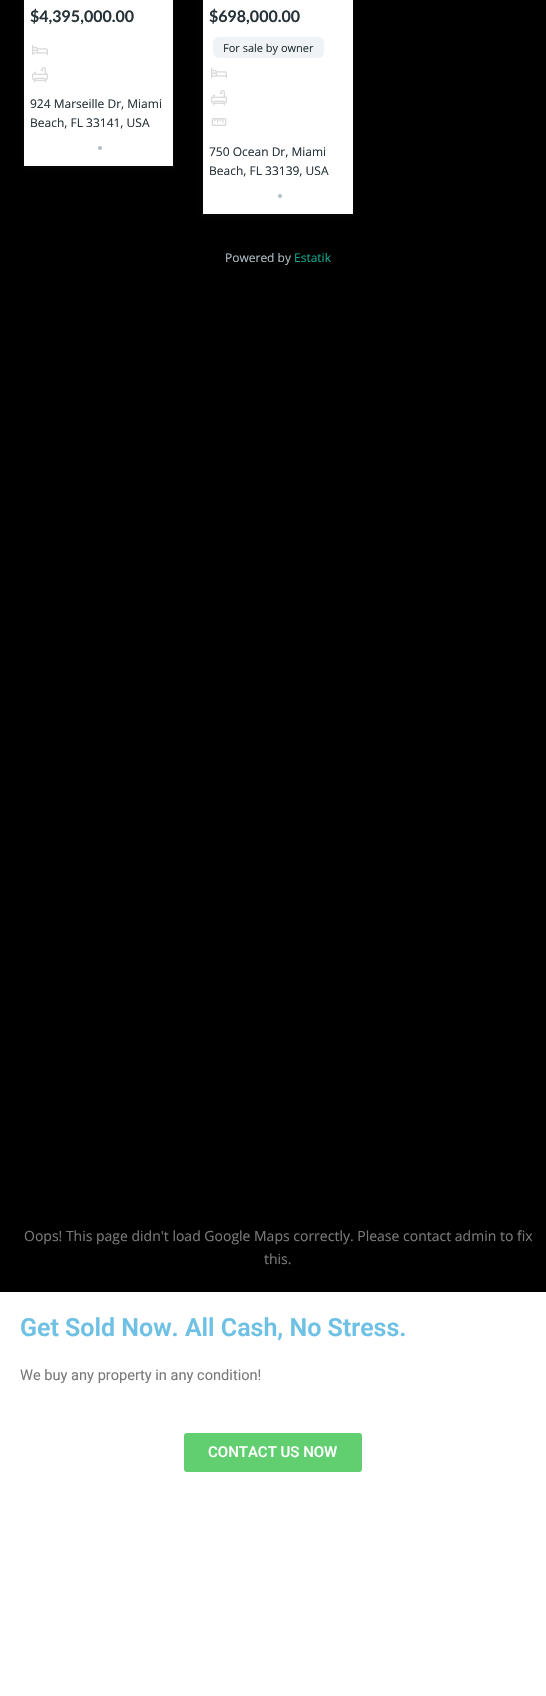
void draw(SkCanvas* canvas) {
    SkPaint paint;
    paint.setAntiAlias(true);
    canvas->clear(0xFFFFFFFF);
    paint.setColor(0xFF000000);
    canvas->drawRect(SkRect::MakeXYWH(0, 0, 546, 1292), paint);
    paint.setColor(0x33263238);
    paint.setMaskFilter(SkMaskFilter::MakeBlur(kNormal_SkBlurStyle, 2));
    canvas->drawRect(SkRect::MakeXYWH(24, -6, 149, 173), paint);
    paint.setMaskFilter(nullptr);
    paint.setColor(0xFFFFFFFF);
    canvas->drawRect(SkRect::MakeXYWH(24, 0, 149, 166), paint);
    SkFont font1(fontMgr->matchFamilyStyle("Lato", SkFontStyle::Bold()), 16);
    font1.setSubpixel(true);
    paint.setColor(0xFF263238);
    canvas->drawString("$4,395,000.00", 30, 22, font1, paint);
    canvas->drawImageRect(SkImages::DeferredFromEncodedData(SkData::MakeFromFileName("img1.png")), SkRect::MakeXYWH(32, 45, 16, 10), SkSamplingOptions());
    canvas->drawImageRect(SkImages::DeferredFromEncodedData(SkData::MakeFromFileName("img2.png")), SkRect::MakeXYWH(32, 67, 16, 16), SkSamplingOptions());
    SkFont font2(fontMgr->matchFamilyStyle("Open Sans", SkFontStyle::Normal()), 12);
    font2.setSubpixel(true);
    canvas->drawString("924 Marseille Dr, Miami", 30, 108, font2, paint);
    canvas->drawString("Beach, FL 33141, USA", 30, 127, font2, paint);
    paint.setColor(0xFFB0BEC5);
    canvas->drawCircle(100, 148, 2, paint);
    paint.setColor(0x33263238);
    paint.setMaskFilter(SkMaskFilter::MakeBlur(kNormal_SkBlurStyle, 2));
    canvas->drawRect(SkRect::MakeXYWH(203, -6, 150, 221), paint);
    paint.setMaskFilter(nullptr);
    paint.setColor(0xFFFFFFFF);
    canvas->drawRect(SkRect::MakeXYWH(203, 0, 150, 214), paint);
    paint.setColor(0xFF263238);
    canvas->drawString("$698,000.00", 209, 22, font1, paint);
    paint.setColor(0xFFEFF3F5);
    canvas->drawRoundRect(SkRect::MakeXYWH(213, 37, 111, 21), 6, 6, paint);
    SkFont font3(fontMgr->matchFamilyStyle("Open Sans", SkFontStyle::Normal()), 11);
    font3.setSubpixel(true);
    paint.setColor(0xFF263238);
    canvas->drawString("For sale by owner", 223, 52, font3, paint);
    canvas->drawImageRect(SkImages::DeferredFromEncodedData(SkData::MakeFromFileName("img1.png")), SkRect::MakeXYWH(211, 68, 16, 10), SkSamplingOptions());
    canvas->drawImageRect(SkImages::DeferredFromEncodedData(SkData::MakeFromFileName("img2.png")), SkRect::MakeXYWH(211, 90, 16, 16), SkSamplingOptions());
    canvas->drawImageRect(SkImages::DeferredFromEncodedData(SkData::MakeFromFileName("img3.png")), SkRect::MakeXYWH(211, 118, 16, 8), SkSamplingOptions());
    canvas->drawString("750 Ocean Dr, Miami", 209, 156, font2, paint);
    canvas->drawString("Beach, FL 33139, USA", 209, 175, font2, paint);
    paint.setColor(0xFFB0BEC5);
    canvas->drawCircle(280, 196, 2, paint);
    canvas->drawString("Powered by", 225, 262, font2, paint);
    paint.setColor(0xFF13A48E);
    canvas->drawString("Estatik", 294, 262, font2, paint);
    SkFont font4(fontMgr->matchFamilyStyle("Open Sans", SkFontStyle::Normal()), 14);
    font4.setSubpixel(true);
    paint.setColor(0xFF7A7A7A);
    canvas->drawString("Oops! This page didn't load Google Maps correctly. Please contact admin to fix", 24, 1241, font4, paint);
    canvas->drawString("this.", 264, 1264, font4, paint);
    SkFont font5(fontMgr->matchFamilyStyle("Roboto", SkFontStyle(600, SkFontStyle::kNormal_Width, SkFontStyle::kUpright_Slant)), 25);
    font5.setSubpixel(true);
    paint.setColor(0xFF6EC1E4);
    canvas->drawString("Get Sold Now. All Cash, No Stress.", 20, 1336, font5, paint);
    SkFont font6(fontMgr->matchFamilyStyle("Roboto", SkFontStyle::Normal()), 14.6f);
    font6.setSubpixel(true);
    paint.setColor(0xFF7A7A7A);
    canvas->drawString("We buy any property in any condition!", 20, 1380, font6, paint);
    paint.setColor(0xFF61CE70);
    canvas->drawRoundRect(SkRect::MakeXYWH(184, 1433, 178, 39), 3, 3, paint);
    SkFont font7(fontMgr->matchFamilyStyle("Roboto", SkFontStyle(500, SkFontStyle::kNormal_Width, SkFontStyle::kUpright_Slant)), 15);
    font7.setSubpixel(true);
    paint.setColor(0xFFFFFFFF);
    canvas->drawString("CONTACT US NOW", 208, 1457, font7, paint);
}
